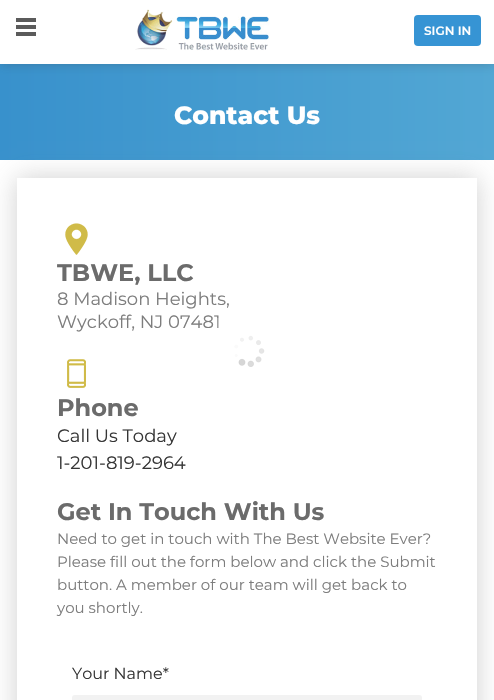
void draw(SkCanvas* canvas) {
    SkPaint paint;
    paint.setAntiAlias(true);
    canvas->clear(0xFFFFFFFF);
    {
        const SkColor colors[] = {0xFF3891CC, 0xFF52A7D4};
        const float stops[] = {0, 1};
        const SkPoint ends[] = {{0, 110}, {494, 110}};
        paint.setShader(SkGradientShader::MakeLinear(ends, colors, stops, 2, SkTileMode::kClamp));
        paint.setAlpha(255);
    }
    canvas->drawRect(SkRect::MakeXYWH(0, 64, 494, 96), paint);
    paint.setShader(nullptr);
    paint.setColor(0x45363636);
    paint.setMaskFilter(SkMaskFilter::MakeBlur(kNormal_SkBlurStyle, 5.5f));
    canvas->drawRect(SkRect::MakeXYWH(0, 0, 494, 64), paint);
    paint.setMaskFilter(nullptr);
    paint.setColor(0xFFFFFFFF);
    canvas->drawRect(SkRect::MakeXYWH(0, 0, 494, 64), paint);
    paint.setColor(0xFF5B5B5B);
    canvas->drawRect(SkRect::MakeXYWH(16, 32, 20, 4), paint);
    canvas->drawRect(SkRect::MakeXYWH(16, 25, 20, 4), paint);
    canvas->drawRect(SkRect::MakeXYWH(16, 18, 20, 4), paint);
    canvas->drawImageRect(SkImages::DeferredFromEncodedData(SkData::MakeFromFileName("img1.png")), SkRect::MakeXYWH(135, 9, 135, 42), SkSamplingOptions());
    paint.setColor(0xFF3694D4);
    canvas->drawRoundRect(SkRect::MakeXYWH(414, 15, 67, 31), 4, 4, paint);
    SkFont font1(fontMgr->matchFamilyStyle("Montserrat", SkFontStyle(600, SkFontStyle::kNormal_Width, SkFontStyle::kUpright_Slant)), 12);
    font1.setSubpixel(true);
    paint.setColor(0xFFFFFFFF);
    canvas->drawString("SIGN IN", 424, 35, font1, paint);
    SkFont font2(fontMgr->matchFamilyStyle("Montserrat", SkFontStyle(800, SkFontStyle::kNormal_Width, SkFontStyle::kUpright_Slant)), 25);
    font2.setSubpixel(true);
    canvas->drawString("Contact Us", 174, 124, font2, paint);
    canvas->save();
    canvas->clipPath(SkPathBuilder(SkPathFillType::kEvenOdd).moveTo(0, 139).lineTo(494, 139).lineTo(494, 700).lineTo(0, 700).close().moveTo(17, 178).lineTo(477, 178).lineTo(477, 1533).lineTo(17, 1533).close().detach(), true);
    paint.setColor(0x4D5F5F5F);
    paint.setMaskFilter(SkMaskFilter::MakeBlur(kNormal_SkBlurStyle, 12.5f));
    canvas->drawRect(SkRect::MakeXYWH(17, 178, 460, 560), paint);
    paint.setMaskFilter(nullptr);
    canvas->restore();
    canvas->drawImageRect(SkImages::DeferredFromEncodedData(SkData::MakeFromFileName("img2.png")), SkRect::MakeXYWH(65, 223, 23, 32), SkSamplingOptions());
    SkFont font3(fontMgr->matchFamilyStyle("Montserrat", SkFontStyle::Bold()), 24);
    font3.setSubpixel(true);
    paint.setColor(0xFF6B6B6B);
    canvas->drawString("TBWE, LLC", 57, 281, font3, paint);
    SkFont font4(fontMgr->matchFamilyStyle("Montserrat", SkFontStyle::Normal()), 18);
    font4.setSubpixel(true);
    paint.setColor(0xFF7D7D7D);
    canvas->drawString("8 Madison Heights,", 57, 305, font4, paint);
    canvas->drawString("Wyckoff, NJ 07481", 57, 328, font4, paint);
    canvas->drawImageRect(SkImages::DeferredFromEncodedData(SkData::MakeFromFileName("img3.png")), SkRect::MakeXYWH(67, 359, 19, 29), SkSamplingOptions());
    paint.setColor(0xFF6B6B6B);
    canvas->drawString("Phone", 57, 416, font3, paint);
    paint.setColor(0xFF363636);
    canvas->drawString("Call Us Today", 57, 442, font4, paint);
    canvas->drawString("1-201-819-2964", 57, 469, font4, paint);
    paint.setColor(0xFF6B6B6B);
    canvas->drawString("Get In Touch With Us", 57, 520, font3, paint);
    SkFont font5(fontMgr->matchFamilyStyle("Montserrat", SkFontStyle::Normal()), 15);
    font5.setSubpixel(true);
    paint.setColor(0xFF7D7D7D);
    canvas->drawString("Need to get in touch with The Best Website Ever?", 57, 544, font5, paint);
    canvas->drawString("Please fill out the form below and click the Submit", 57, 567, font5, paint);
    canvas->drawString("button. A member of our team will get back to", 57, 590, font5, paint);
    canvas->drawString("you shortly.", 57, 613, font5, paint);
    SkFont font6(fontMgr->matchFamilyStyle("Montserrat", SkFontStyle::Normal()), 16);
    font6.setSubpixel(true);
    paint.setColor(0xFF363636);
    canvas->drawString("Your Name*", 72, 679, font6, paint);
    paint.setColor(0xFFF2F2F2);
    canvas->drawRoundRect(SkRect::MakeXYWH(72, 695, 350, 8), 3, 3, paint);
    canvas->drawImageRect(SkImages::DeferredFromEncodedData(SkData::MakeFromFileName("img4.png")), SkRect::MakeXYWH(217, 318, 48, 49), SkSamplingOptions());
}
